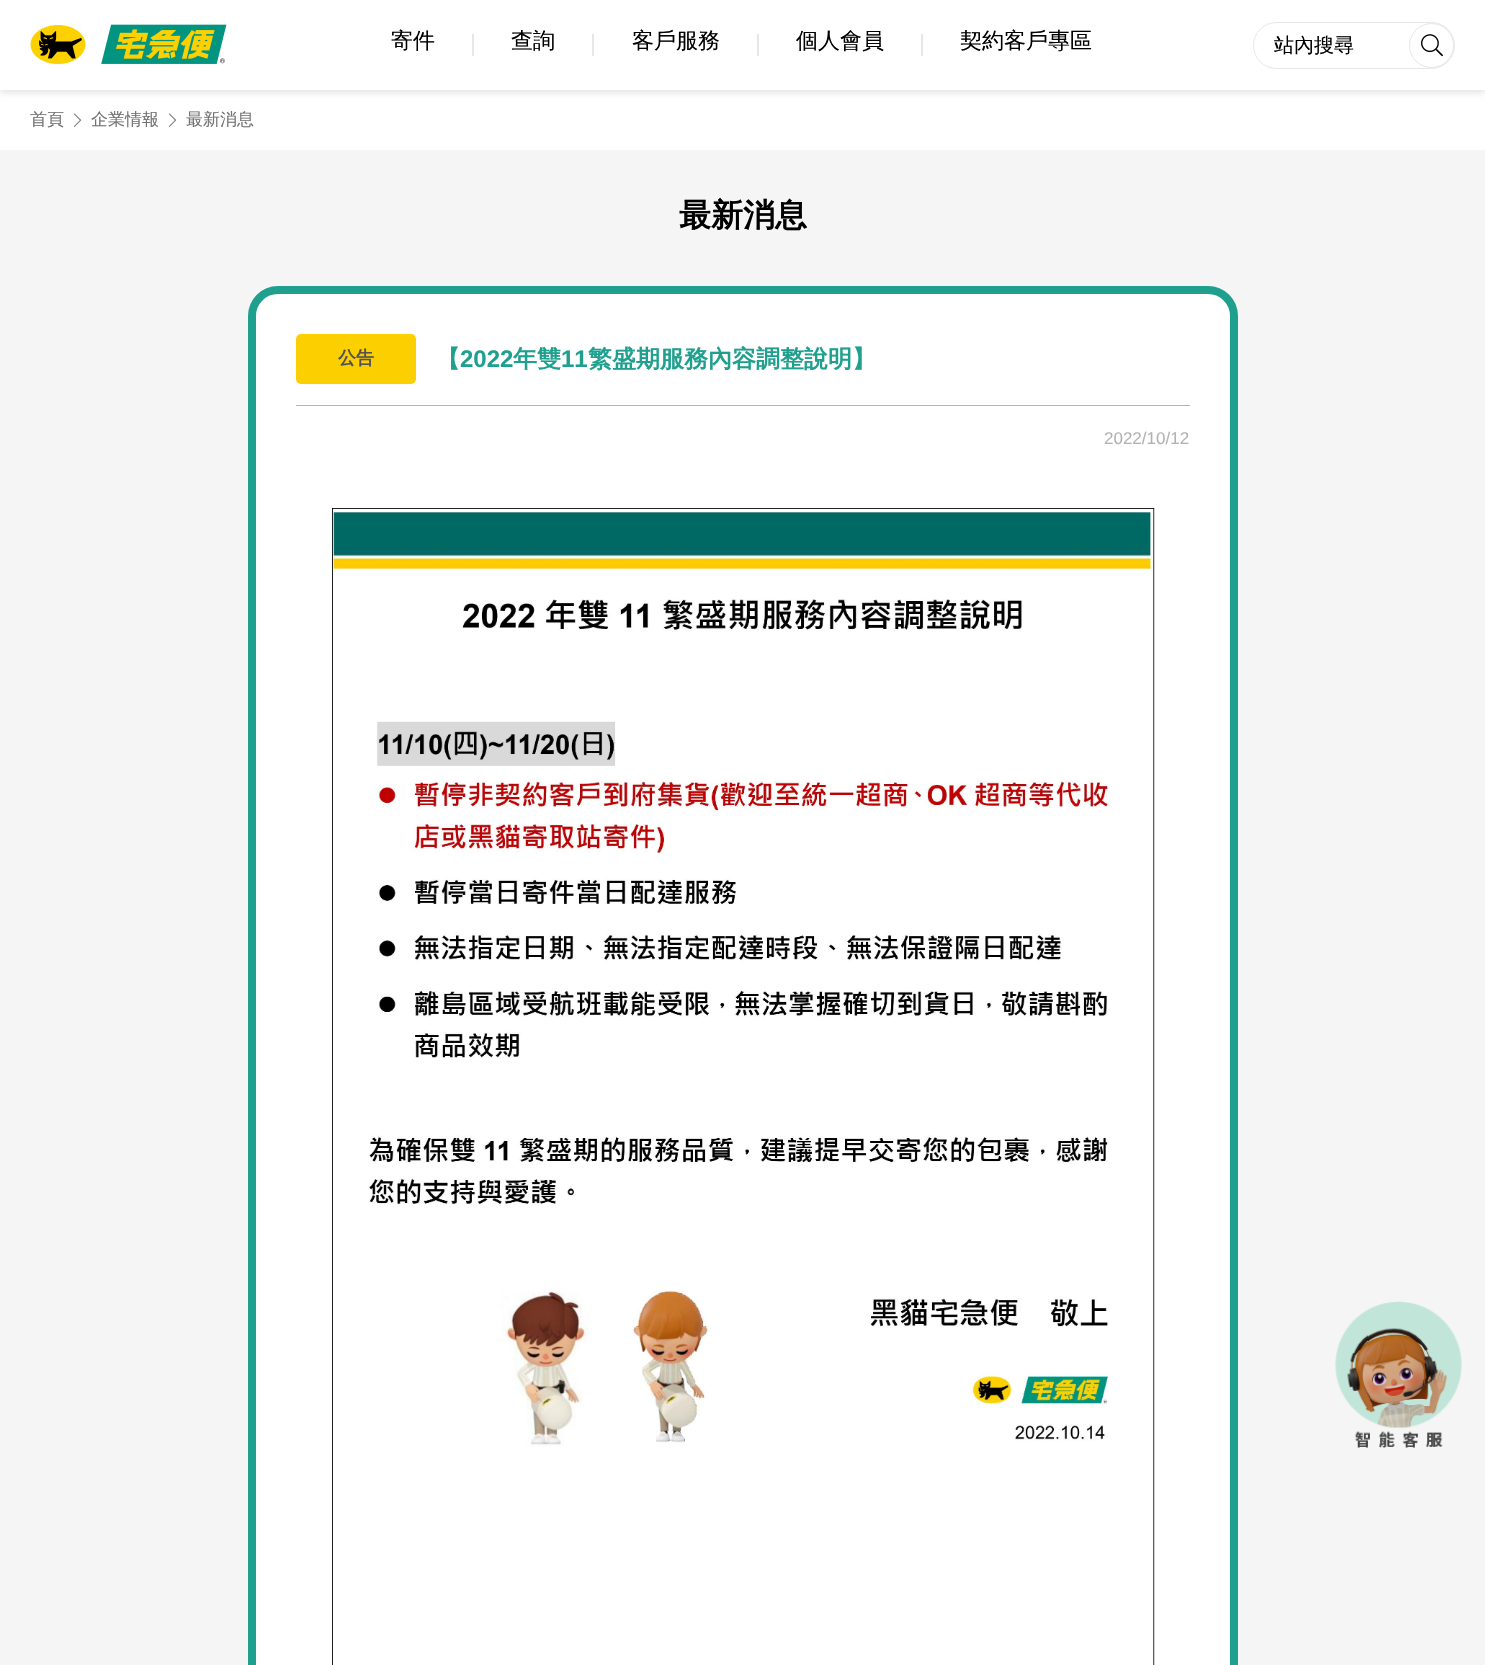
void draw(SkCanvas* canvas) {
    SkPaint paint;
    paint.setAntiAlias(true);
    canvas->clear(0xFFF5F5F5);
    paint.setColor(0xFFFFFFFF);
    canvas->drawRect(SkRect::MakeXYWH(0, 90, 1485, 60), paint);
    paint.setColor(0x1A000000);
    paint.setMaskFilter(SkMaskFilter::MakeBlur(kNormal_SkBlurStyle, 3));
    canvas->drawRect(SkRect::MakeXYWH(0, 3, 1485, 90), paint);
    paint.setMaskFilter(nullptr);
    paint.setColor(0xFFFFFFFF);
    canvas->drawRect(SkRect::MakeXYWH(0, 0, 1485, 90), paint);
    canvas->drawImageRect(SkImages::DeferredFromEncodedData(SkData::MakeFromFileName("img1.png")), SkRect::MakeXYWH(30, 24, 197, 40), SkSamplingOptions());
    SkFont font1(fontMgr->matchFamilyStyle("WenQuanYi Zen Hei", SkFontStyle(500, SkFontStyle::kNormal_Width, SkFontStyle::kUpright_Slant)), 22);
    font1.setSubpixel(true);
    paint.setColor(0xFF000000);
    canvas->drawString("寄件", 391, 48, font1, paint);
    paint.setColor(0xFFE7E7E7);
    canvas->drawRect(SkRect::MakeXYWH(472, 34, 2, 22), paint);
    paint.setColor(0xFF000000);
    canvas->drawString("查詢", 511, 48, font1, paint);
    paint.setColor(0xFFE7E7E7);
    canvas->drawRect(SkRect::MakeXYWH(592, 34, 2, 22), paint);
    paint.setColor(0xFF000000);
    canvas->drawString("客戶服務", 632, 48, font1, paint);
    paint.setColor(0xFFE7E7E7);
    canvas->drawRect(SkRect::MakeXYWH(757, 34, 2, 22), paint);
    paint.setColor(0xFF000000);
    canvas->drawString("個人會員", 796, 48, font1, paint);
    paint.setColor(0xFFE7E7E7);
    canvas->drawRect(SkRect::MakeXYWH(921, 34, 2, 22), paint);
    paint.setColor(0xFF000000);
    canvas->drawString("契約客戶專區", 960, 48, font1, paint);
    paint.setStyle(SkPaint::kStroke_Style);
    paint.setStrokeWidth(1);
    paint.setColor(0xFFE7E7E7);
    canvas->drawRoundRect(SkRect::MakeXYWH(1253.5f, 22.5f, 201, 46), 23, 23, paint);
    SkFont font2(fontMgr->matchFamilyStyle("WenQuanYi Zen Hei", SkFontStyle(500, SkFontStyle::kNormal_Width, SkFontStyle::kUpright_Slant)), 20);
    font2.setSubpixel(true);
    paint.setStyle(SkPaint::kFill_Style);
    paint.setColor(0xFF000000);
    canvas->drawString("站內搜尋", 1274, 52, font2, paint);
    paint.setStyle(SkPaint::kStroke_Style);
    paint.setColor(0xFFE7E7E7);
    canvas->drawCircle(1431.5f, 45.5f, 22, paint);
    canvas->drawImageRect(SkImages::DeferredFromEncodedData(SkData::MakeFromFileName("img2.png")), SkRect::MakeXYWH(1421, 34, 22, 23), SkSamplingOptions());
    SkFont font3(fontMgr->matchFamilyStyle("WenQuanYi Zen Hei", SkFontStyle(500, SkFontStyle::kNormal_Width, SkFontStyle::kUpright_Slant)), 17);
    font3.setSubpixel(true);
    paint.setStyle(SkPaint::kFill_Style);
    paint.setColor(0xFF727272);
    canvas->drawString("首頁", 30, 125, font3, paint);
    canvas->drawImageRect(SkImages::DeferredFromEncodedData(SkData::MakeFromFileName("img3.png")), SkRect::MakeXYWH(73, 113, 9, 14), SkSamplingOptions());
    canvas->drawString("企業情報", 91, 125, font3, paint);
    canvas->drawImageRect(SkImages::DeferredFromEncodedData(SkData::MakeFromFileName("img3.png")), SkRect::MakeXYWH(168, 113, 9, 14), SkSamplingOptions());
    canvas->drawString("最新消息", 186, 125, font3, paint);
    SkFont font4(fontMgr->matchFamilyStyle("WenQuanYi Zen Hei", SkFontStyle::Bold()), 32);
    font4.setSubpixel(true);
    paint.setColor(0xFF000000);
    canvas->drawString("最新消息", 679, 226, font4, paint);
    paint.setColor(0xFFFFFFFF);
    canvas->drawRoundRect(SkRect::MakeXYWH(252, 290, 982, 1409), 26, 26, paint);
    paint.setStyle(SkPaint::kStroke_Style);
    paint.setStrokeWidth(8);
    paint.setColor(0xFF1FA08E);
    canvas->drawRoundRect(SkRect::MakeXYWH(252, 290, 982, 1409), 26, 26, paint);
    paint.setStyle(SkPaint::kFill_Style);
    paint.setColor(0xFFFCCF00);
    canvas->drawRoundRect(SkRect::MakeXYWH(296, 334, 120, 50), 5, 5, paint);
    SkFont font5(fontMgr->matchFamilyStyle("WenQuanYi Zen Hei", SkFontStyle::Bold()), 18);
    font5.setSubpixel(true);
    paint.setColor(0xFF545251);
    canvas->drawString("公告", 338, 364, font5, paint);
    SkFont font6(fontMgr->matchFamilyStyle("WenQuanYi Zen Hei", SkFontStyle::Bold()), 24);
    font6.setSubpixel(true);
    paint.setColor(0xFF1FA08E);
    canvas->drawString("【", 436, 367, font6, paint);
    SkFont font7(fontMgr->matchFamilyStyle("Liberation Sans", SkFontStyle::Bold()), 24);
    font7.setSubpixel(true);
    canvas->drawString("2022", 460, 367, font7, paint);
    canvas->drawString("年雙", 513, 367, font6, paint);
    canvas->drawString("11", 561, 367, font7, paint);
    canvas->drawString("繁盛期服務內容調整說明】", 588, 367, font6, paint);
    paint.setColor(0xFFB2B2B2);
    canvas->drawRect(SkRect::MakeXYWH(296, 405, 894, 1), paint);
    SkFont font8(fontMgr->matchFamilyStyle("Liberation Sans", SkFontStyle::Normal()), 17);
    font8.setSubpixel(true);
    canvas->drawString("2022/10/12", 1104, 444, font8, paint);
    canvas->drawImageRect(SkImages::DeferredFromEncodedData(SkData::MakeFromFileName("img4.png")), SkRect::MakeXYWH(331, 507, 825, 1158), SkSamplingOptions());
    canvas->drawImageRect(SkImages::DeferredFromEncodedData(SkData::MakeFromFileName("img5.png")), SkRect::MakeXYWH(1335, 1301, 127, 147), SkSamplingOptions());
}
